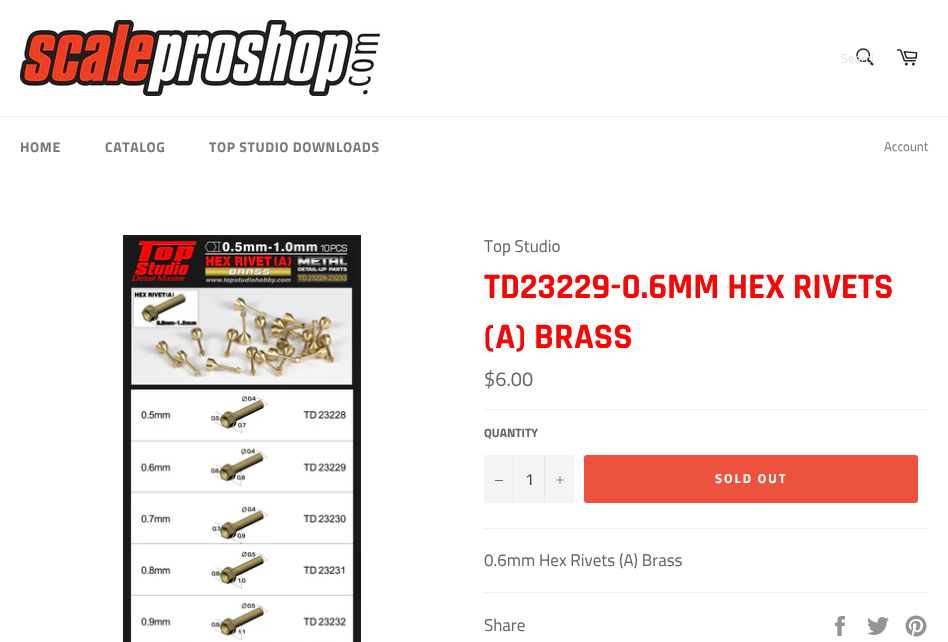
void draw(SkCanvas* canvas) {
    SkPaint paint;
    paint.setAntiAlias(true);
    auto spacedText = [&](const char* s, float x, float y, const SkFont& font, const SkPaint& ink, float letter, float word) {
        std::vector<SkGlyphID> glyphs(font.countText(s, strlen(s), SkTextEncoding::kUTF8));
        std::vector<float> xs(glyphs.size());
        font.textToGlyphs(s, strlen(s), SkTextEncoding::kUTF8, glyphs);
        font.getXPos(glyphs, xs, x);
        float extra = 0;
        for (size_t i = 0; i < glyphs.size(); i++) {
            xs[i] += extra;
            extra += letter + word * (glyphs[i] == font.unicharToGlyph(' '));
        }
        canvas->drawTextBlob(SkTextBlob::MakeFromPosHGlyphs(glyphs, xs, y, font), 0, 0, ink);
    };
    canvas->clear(0xFFFFFFFF);
    canvas->drawImageRect(SkImages::DeferredFromEncodedData(SkData::MakeFromFileName("img1.png")), SkRect::MakeXYWH(20, 20, 360, 76), SkSamplingOptions());
    canvas->drawImageRect(SkImages::DeferredFromEncodedData(SkData::MakeFromFileName("img2.png")), SkRect::MakeXYWH(856, 48, 18, 18), SkSamplingOptions());
    canvas->save();
    canvas->clipRect(SkRect::MakeXYWH(841, 48, 32, 20));
    SkFont font1(fontMgr->matchFamilyStyle("Titillium Web", SkFontStyle::Normal()), 13);
    font1.setSubpixel(true);
    paint.setColor(0xFFE5E5E5);
    canvas->drawString("Search", 841, 63, font1, paint);
    canvas->restore();
    canvas->drawImageRect(SkImages::DeferredFromEncodedData(SkData::MakeFromFileName("img3.png")), SkRect::MakeXYWH(896, 49, 22, 17), SkSamplingOptions());
    paint.setColor(0xFFF2F2F2);
    canvas->drawRect(SkRect::MakeXYWH(0, 116, 948, 1), paint);
    SkFont font2(fontMgr->matchFamilyStyle("Titillium Web", SkFontStyle::Bold()), 14);
    font2.setSubpixel(true);
    paint.setColor(0xFF7A7A7A);
    spacedText("HOME", 20, 152, font2, paint, 0.6f, 0);
    spacedText("CATALOG", 105, 152, font2, paint, 0.6f, 0);
    spacedText("TOP STUDIO DOWNLOADS", 209, 152, font2, paint, 0.6f, 0);
    canvas->drawString("Account", 884, 151, font1, paint);
    canvas->drawImageRect(SkImages::DeferredFromEncodedData(SkData::MakeFromFileName("img4.png")), SkRect::MakeXYWH(123, 235, 238, 407), SkSamplingOptions());
    SkFont font3(fontMgr->matchFamilyStyle("Titillium Web", SkFontStyle::Normal()), 17);
    font3.setSubpixel(true);
    paint.setColor(0xFF666666);
    canvas->drawString("Top Studio", 484, 252, font3, paint);
    SkFont font4(fontMgr->matchFamilyStyle("Rajdhani", SkFontStyle::Bold()), 36);
    font4.setSubpixel(true);
    paint.setColor(0xFFF70606);
    canvas->drawString("TD23229-0.6MM HEX RIVETS", 484, 298, font4, paint);
    canvas->drawString("(A) BRASS", 484, 348, font4, paint);
    SkFont font5(fontMgr->matchFamilyStyle("Titillium Web", SkFontStyle::Normal()), 20);
    font5.setSubpixel(true);
    paint.setColor(0xFF666666);
    canvas->drawString("$6.00", 484, 386, font5, paint);
    paint.setColor(0xFFF0F0F0);
    canvas->drawRect(SkRect::MakeXYWH(484, 409, 444, 1), paint);
    SkFont font6(fontMgr->matchFamilyStyle("Titillium Web", SkFontStyle::Bold()), 12);
    font6.setSubpixel(true);
    paint.setColor(0xFF666666);
    canvas->drawString("QUANTITY", 484, 437, font6, paint);
    paint.setColor(0xFFF4F4F4);
    canvas->drawRect(SkRect::MakeXYWH(484, 455, 90, 48), paint);
    paint.setColor(0xFFE7E7E7);
    canvas->drawRect(SkRect::MakeXYWH(513, 455, 1, 48), paint);
    paint.setColor(0xFF666666);
    canvas->drawRect(SkRect::MakeXYWH(495, 480, 8, 1), paint);
    SkFont font7(fontMgr->matchFamilyStyle("Titillium Web", SkFontStyle::Normal()), 16);
    font7.setSubpixel(true);
    paint.setColor(0xFF333333);
    canvas->drawString("1", 525, 485, font7, paint);
    paint.setColor(0xFFE7E7E7);
    canvas->drawRect(SkRect::MakeXYWH(544, 455, 1, 48), paint);
    canvas->drawImageRect(SkImages::DeferredFromEncodedData(SkData::MakeFromFileName("img5.png")), SkRect::MakeXYWH(556, 476, 8, 8), SkSamplingOptions());
    paint.setColor(0xFFEC523E);
    canvas->drawRoundRect(SkRect::MakeXYWH(584, 455, 334, 48), 3, 3, paint);
    SkFont font8(fontMgr->matchFamilyStyle("Titillium Web", SkFontStyle::Bold()), 13);
    font8.setSubpixel(true);
    paint.setColor(0xFFFFFFFF);
    spacedText("SOLD OUT", 715, 483, font8, paint, 2, 0);
    paint.setColor(0xFFF0F0F0);
    canvas->drawRect(SkRect::MakeXYWH(484, 528, 444, 1), paint);
    paint.setColor(0xFF666666);
    canvas->drawString("0.6mm Hex Rivets (A) Brass", 484, 566, font3, paint);
    paint.setColor(0xFFF0F0F0);
    canvas->drawRect(SkRect::MakeXYWH(484, 592, 444, 1), paint);
    paint.setColor(0xFF666666);
    canvas->drawString("Share", 484, 631, font3, paint);
    canvas->drawImageRect(SkImages::DeferredFromEncodedData(SkData::MakeFromFileName("img6.png")), SkRect::MakeXYWH(835, 616, 10, 20), SkSamplingOptions());
    canvas->drawImageRect(SkImages::DeferredFromEncodedData(SkData::MakeFromFileName("img7.png")), SkRect::MakeXYWH(867, 617, 22, 18), SkSamplingOptions());
    canvas->drawImageRect(SkImages::DeferredFromEncodedData(SkData::MakeFromFileName("img8.png")), SkRect::MakeXYWH(905, 615, 22, 22), SkSamplingOptions());
}
